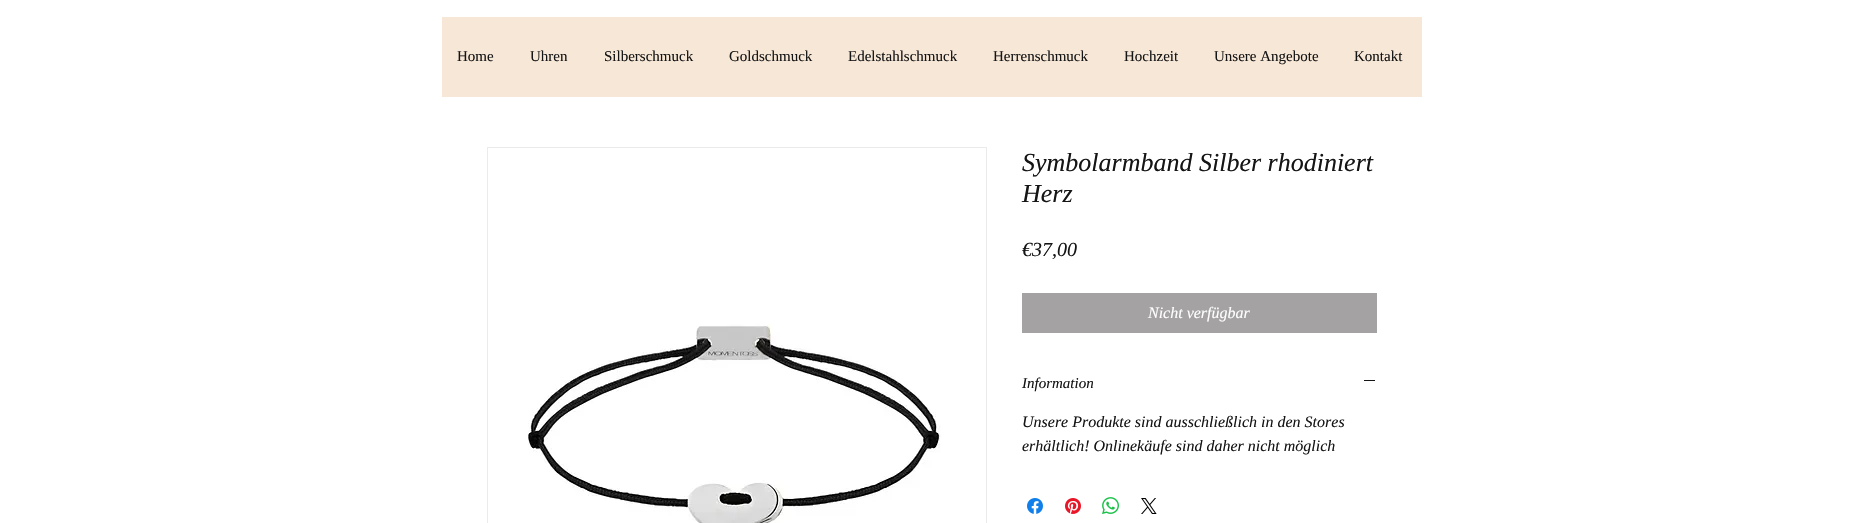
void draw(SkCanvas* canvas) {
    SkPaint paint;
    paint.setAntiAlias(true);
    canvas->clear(0xFFFFFFFF);
    paint.setColor(0xFFF7E7D7);
    canvas->drawRect(SkRect::MakeXYWH(442, 17, 980, 80), paint);
    SkFont font1(fontMgr->matchFamilyStyle("Liberation Serif", SkFontStyle::Normal()), 15);
    font1.setSubpixel(true);
    paint.setColor(0xFF151515);
    canvas->drawString("Home", 457, 61, font1, paint);
    canvas->drawString("Uhren", 530, 61, font1, paint);
    canvas->drawString("Silberschmuck", 604, 61, font1, paint);
    canvas->drawString("Goldschmuck", 729, 61, font1, paint);
    canvas->drawString("Edelstahlschmuck", 848, 61, font1, paint);
    canvas->drawString("Herrenschmuck", 993, 61, font1, paint);
    canvas->drawString("Hochzeit", 1124, 61, font1, paint);
    canvas->drawString("Unsere Angebote", 1214, 61, font1, paint);
    canvas->drawString("Kontakt", 1354, 61, font1, paint);
    paint.setStyle(SkPaint::kStroke_Style);
    paint.setStrokeWidth(1);
    paint.setColor(0xFFEBEBEB);
    canvas->drawRect(SkRect::MakeXYWH(487.5f, 147.5f, 499, 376), paint);
    canvas->drawImageRect(SkImages::DeferredFromEncodedData(SkData::MakeFromFileName("img1.png")), SkRect::MakeXYWH(528, 324, 413, 199), SkSamplingOptions());
    SkFont font2(fontMgr->matchFamilyStyle("Liberation Serif", SkFontStyle::Italic()), 26);
    font2.setSubpixel(true);
    paint.setStyle(SkPaint::kFill_Style);
    paint.setColor(0xFF151515);
    canvas->drawString("Symbolarmband Silber rhodiniert", 1022, 171, font2, paint);
    canvas->drawString("Herz", 1022, 202, font2, paint);
    SkFont font3(fontMgr->matchFamilyStyle("Liberation Serif", SkFontStyle::Italic()), 20);
    font3.setSubpixel(true);
    canvas->drawString("€37,00", 1022, 256, font3, paint);
    paint.setColor(0xFFA4A2A2);
    canvas->drawRect(SkRect::MakeXYWH(1022, 293, 355, 40), paint);
    SkFont font4(fontMgr->matchFamilyStyle("Liberation Serif", SkFontStyle::Italic()), 16);
    font4.setSubpixel(true);
    paint.setColor(0xFFFFFFFF);
    canvas->drawString("Nicht verfügbar", 1148, 318, font4, paint);
    SkFont font5(fontMgr->matchFamilyStyle("Liberation Serif", SkFontStyle::Italic()), 15);
    font5.setSubpixel(true);
    paint.setColor(0xFF151515);
    canvas->drawString("Information", 1022, 388, font5, paint);
    canvas->drawRect(SkRect::MakeXYWH(1364, 380, 11, 1), paint);
    canvas->drawString("Unsere Produkte sind ausschließlich in den Stores", 1022, 427, font4, paint);
    canvas->drawString("erhältlich! Onlinekäufe sind daher nicht möglich", 1022, 451, font4, paint);
    canvas->drawImageRect(SkImages::DeferredFromEncodedData(SkData::MakeFromFileName("img2.png")), SkRect::MakeXYWH(1027, 498, 16, 16), SkSamplingOptions());
    canvas->drawImageRect(SkImages::DeferredFromEncodedData(SkData::MakeFromFileName("img3.png")), SkRect::MakeXYWH(1065, 498, 16, 16), SkSamplingOptions());
    canvas->drawImageRect(SkImages::DeferredFromEncodedData(SkData::MakeFromFileName("img4.png")), SkRect::MakeXYWH(1102, 497, 17, 17), SkSamplingOptions());
    canvas->drawImageRect(SkImages::DeferredFromEncodedData(SkData::MakeFromFileName("img5.png")), SkRect::MakeXYWH(1141, 498, 16, 16), SkSamplingOptions());
}
